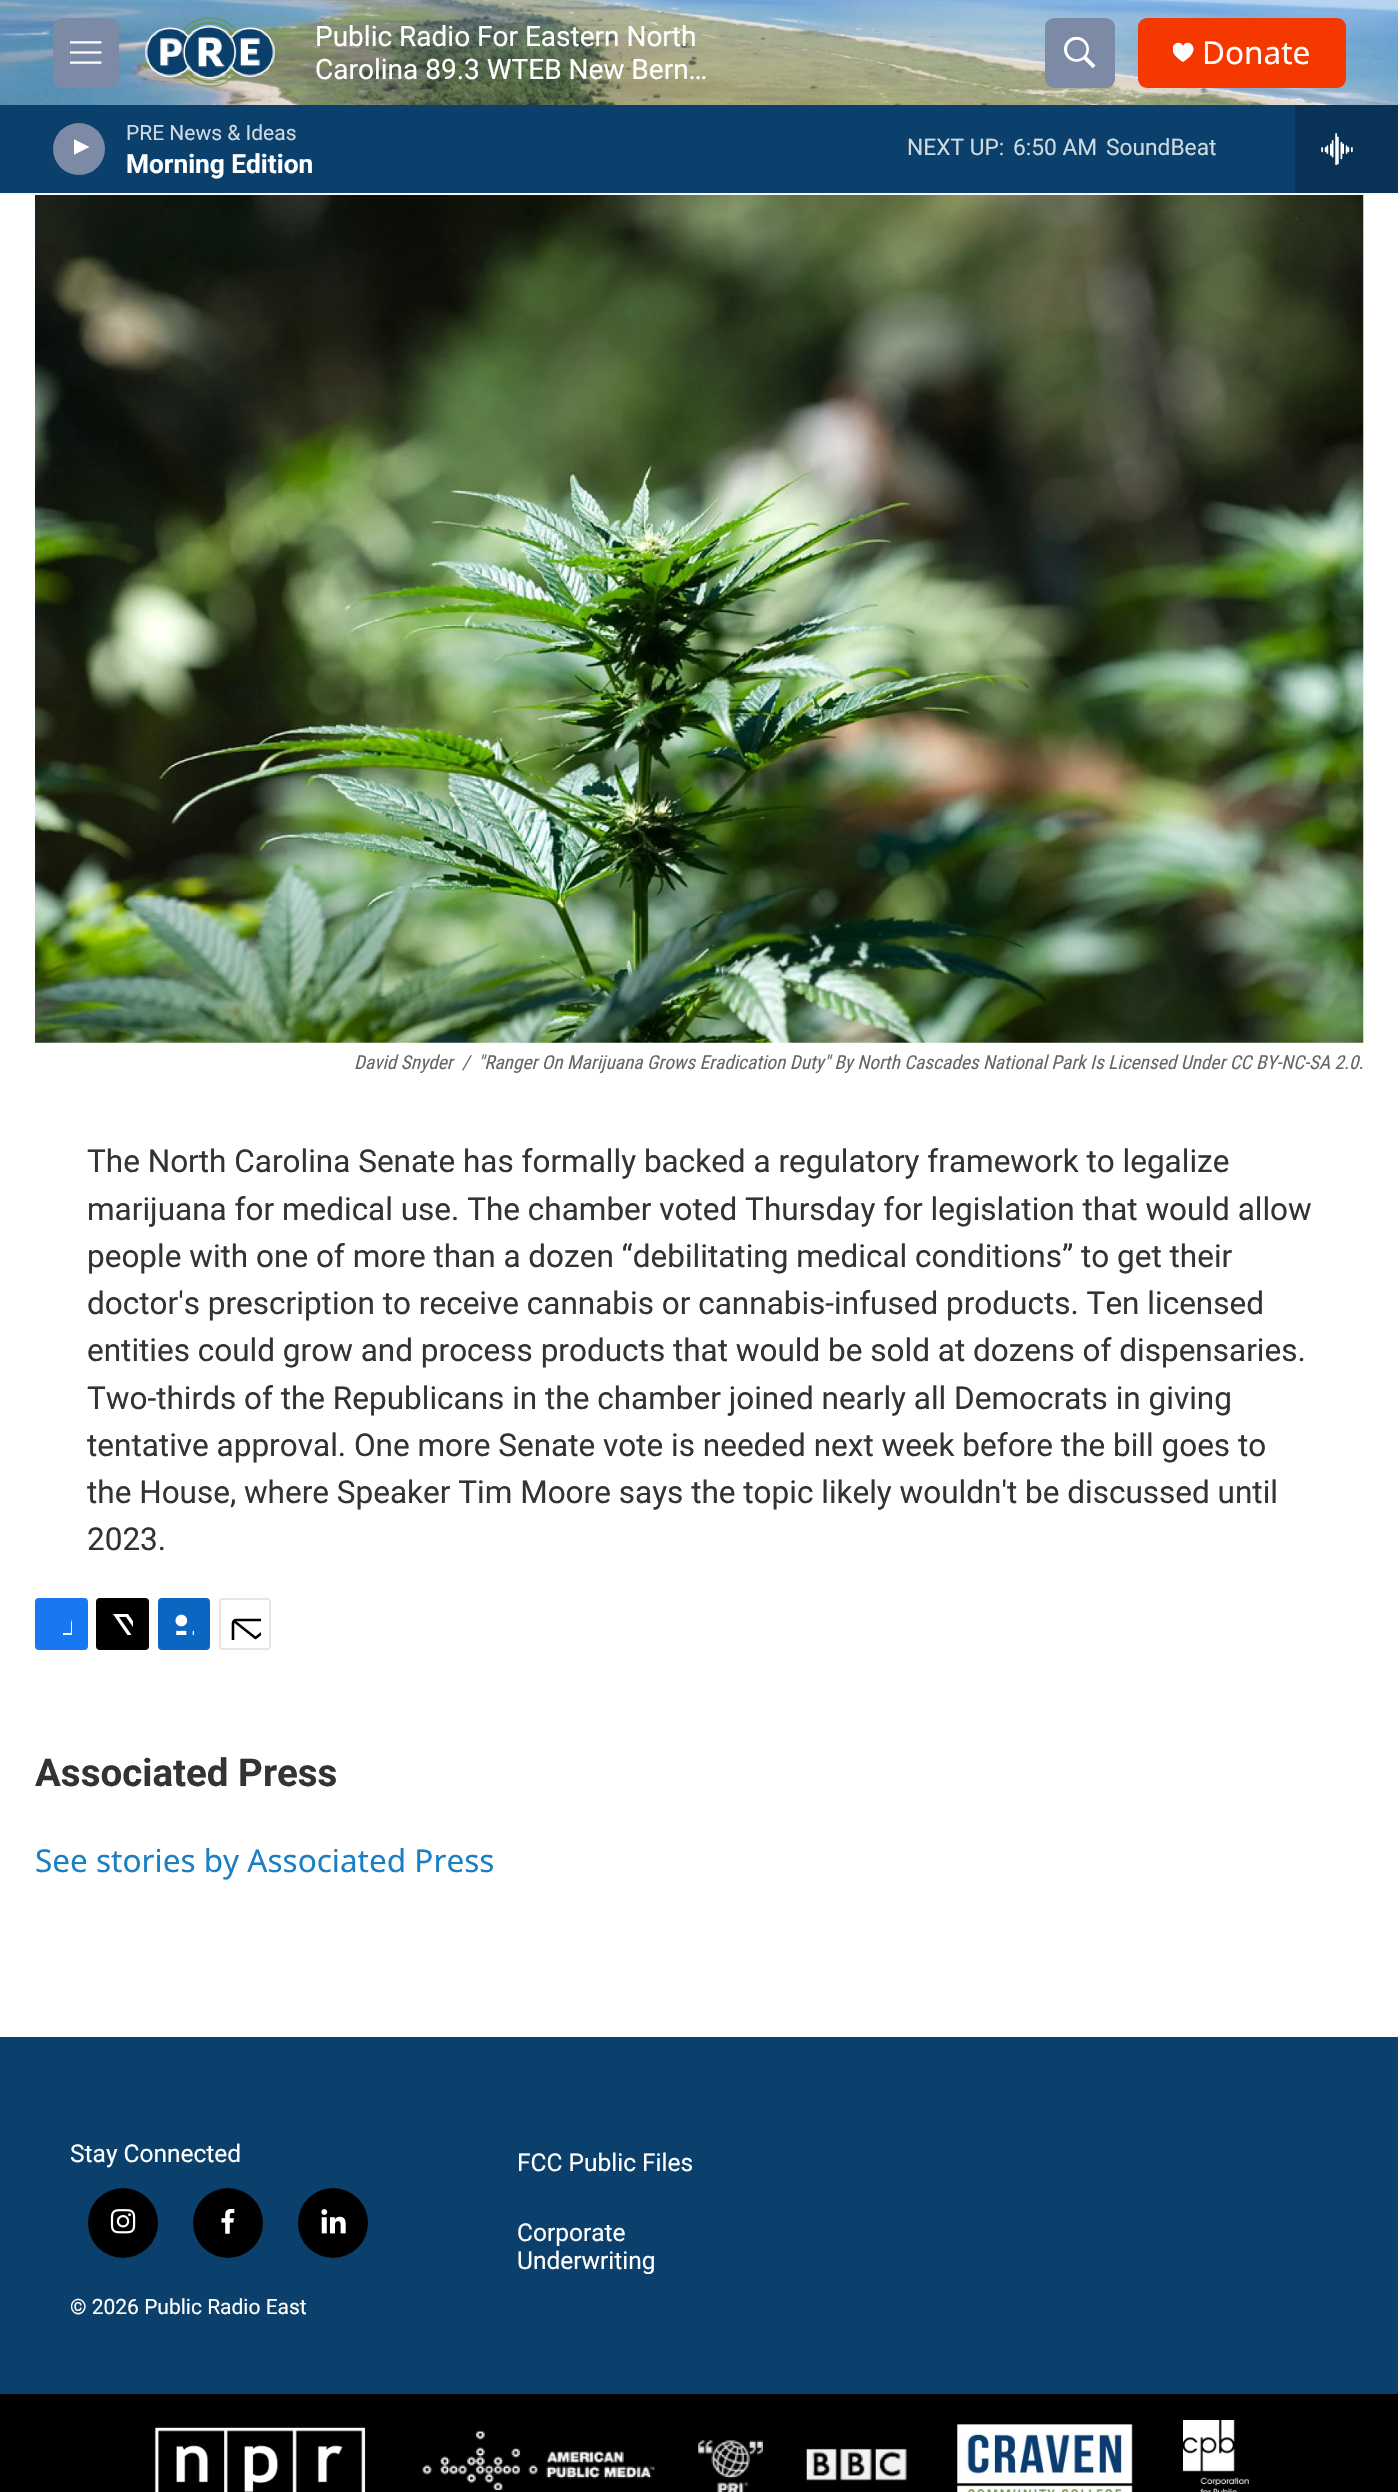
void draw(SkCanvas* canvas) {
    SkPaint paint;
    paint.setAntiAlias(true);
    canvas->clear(0xFFFFFFFF);
    paint.setColor(0xFFF5F5F5);
    canvas->drawRect(SkRect::MakeXYWH(0, 193, 1398, 2), paint);
    canvas->drawImageRect(SkImages::DeferredFromEncodedData(SkData::MakeFromFileName("img1.png")), SkRect::MakeXYWH(0, 0, 1398, 105), SkSamplingOptions());
    paint.setColor(0xFF7D8AA6);
    canvas->drawRoundRect(SkRect::MakeXYWH(53, 18, 66, 70), 9, 9, paint);
    canvas->drawImageRect(SkImages::DeferredFromEncodedData(SkData::MakeFromFileName("img2.png")), SkRect::MakeXYWH(70, 41, 32, 23), SkSamplingOptions());
    canvas->drawImageRect(SkImages::DeferredFromEncodedData(SkData::MakeFromFileName("img3.png")), SkRect::MakeXYWH(145, 17, 130, 71), SkSamplingOptions());
    SkFont font1(fontMgr->matchFamilyStyle("Roboto", SkFontStyle::Normal()), 28);
    font1.setSubpixel(true);
    paint.setColor(0xFFFFFFFF);
    canvas->drawString("Public Radio For Eastern North", 315, 46, font1, paint);
    canvas->drawString("Carolina 89.3 WTEB New Bern…", 315, 79, font1, paint);
    paint.setColor(0xFF7D8AA6);
    canvas->drawRoundRect(SkRect::MakeXYWH(1045, 18, 70, 70), 9, 9, paint);
    canvas->drawImageRect(SkImages::DeferredFromEncodedData(SkData::MakeFromFileName("img4.png")), SkRect::MakeXYWH(1064, 37, 32, 31), SkSamplingOptions());
    paint.setColor(0xFFF53700);
    canvas->drawRoundRect(SkRect::MakeXYWH(1138, 18, 208, 70), 9, 9, paint);
    canvas->save();
    canvas->clipRect(SkRect::MakeXYWH(1173, 42, 21, 21));
    paint.setColor(0xFFFFFFFF);
    canvas->drawPath(SkPathBuilder().moveTo(1183, 46).cubicTo(1179.5f, 37, 1161, 48.5f, 1183, 62).cubicTo(1205, 48.5f, 1186.5f, 37, 1183, 46).close().detach(), paint);
    canvas->restore();
    SkFont font2(fontMgr->matchFamilyStyle("Noto Sans", SkFontStyle::Normal()), 31.5f);
    font2.setSubpixel(true);
    canvas->drawString("Donate", 1202, 64, font2, paint);
    paint.setColor(0xFF0A406B);
    canvas->drawRect(SkRect::MakeXYWH(0, 105, 1295, 88), paint);
    paint.setColor(0xFF7D8AA6);
    canvas->drawCircle(79, 149, 26, paint);
    canvas->save();
    canvas->clipRect(SkRect::MakeXYWH(74, 137, 20, 26));
    paint.setColor(0xFFFFFFFF);
    canvas->drawPath(SkPathBuilder().moveTo(72.5f, 138.5f).lineTo(89.5f, 147).lineTo(72.5f, 155.5f).close().detach(), paint);
    canvas->restore();
    SkFont font3(fontMgr->matchFamilyStyle("Roboto", SkFontStyle::Normal()), 21);
    font3.setSubpixel(true);
    paint.setColor(0xFFCED9E1);
    canvas->drawString("PRE News & Ideas", 126, 140, font3, paint);
    SkFont font4(fontMgr->matchFamilyStyle("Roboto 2", SkFontStyle::Bold()), 26.25f);
    font4.setSubpixel(true);
    paint.setColor(0xFFFFFFFF);
    canvas->drawString("Morning Edition", 126, 173, font4, paint);
    SkFont font5(fontMgr->matchFamilyStyle("Roboto", SkFontStyle::Normal()), 22.75f);
    font5.setSubpixel(true);
    paint.setColor(0xFFCED9E1);
    canvas->drawString("NEXT UP:", 907, 155, font5, paint);
    canvas->drawString("6:50 AM", 1013, 155, font5, paint);
    canvas->drawString("SoundBeat", 1106, 155, font5, paint);
    paint.setColor(0xFF083356);
    canvas->drawRect(SkRect::MakeXYWH(1295, 105, 103, 88), paint);
    canvas->drawImageRect(SkImages::DeferredFromEncodedData(SkData::MakeFromFileName("img5.png")), SkRect::MakeXYWH(1321, 133, 32, 32), SkSamplingOptions());
    canvas->drawImageRect(SkImages::DeferredFromEncodedData(SkData::MakeFromFileName("img6.png")), SkRect::MakeXYWH(35, 195, 1329, 848), SkSamplingOptions());
    SkFont font6(fontMgr->matchFamilyStyle("Roboto Condensed", SkFontStyle::Italic()), 19.25f);
    font6.setSubpixel(true);
    paint.setColor(0xFF666666);
    canvas->drawString("David Snyder", 354, 1069, font6, paint);
    canvas->drawString("/", 462, 1069, font6, paint);
    canvas->drawString("\"Ranger On Marijuana Grows Eradication Duty\" By North Cascades National Park Is Licensed Under CC BY-NC-SA 2.0.", 478, 1069, font6, paint);
    SkFont font7(fontMgr->matchFamilyStyle("Roboto", SkFontStyle::Normal()), 31.5f);
    font7.setSubpixel(true);
    paint.setColor(0xFF333333);
    canvas->drawString("The North Carolina Senate has formally backed a regulatory framework to legalize", 87, 1172, font7, paint);
    canvas->drawString("marijuana for medical use. The chamber voted Thursday for legislation that would allow", 87, 1220, font7, paint);
    canvas->drawString("people with one of more than a dozen “debilitating medical conditions” to get their", 87, 1267, font7, paint);
    canvas->drawString("doctor's prescription to receive cannabis or cannabis-infused products. Ten licensed", 87, 1314, font7, paint);
    canvas->drawString("entities could grow and process products that would be sold at dozens of dispensaries.", 87, 1361, font7, paint);
    canvas->drawString("Two-thirds of the Republicans in the chamber joined nearly all Democrats in giving", 87, 1409, font7, paint);
    canvas->drawString("tentative approval. One more Senate vote is needed next week before the bill goes to", 87, 1456, font7, paint);
    canvas->drawString("the House, where Speaker Tim Moore says the topic likely wouldn't be discussed until", 87, 1503, font7, paint);
    canvas->drawString("2023.", 87, 1550, font7, paint);
    paint.setColor(0xFF1778F2);
    canvas->drawRoundRect(SkRect::MakeXYWH(35, 1598, 53, 52), 4, 4, paint);
    canvas->save();
    canvas->clipRect(SkRect::MakeXYWH(51, 1614, 21, 21));
    paint.setColor(0xFFFFFFFF);
    canvas->drawPath(SkPathBuilder().moveTo(80, 1650).lineTo(71, 1650).lineTo(71, 1642).lineTo(63, 1642).lineTo(63, 1633).lineTo(71, 1633).lineTo(71, 1623).cubicTo(72, 1614.5f, 80.5f, 1613, 88, 1615).lineTo(88, 1622).cubicTo(78, 1622, 80, 1625, 80, 1633).lineTo(88, 1633).lineTo(87, 1642).lineTo(80, 1642).close().detach(), paint);
    canvas->restore();
    paint.setColor(0xFF000000);
    canvas->drawRoundRect(SkRect::MakeXYWH(96, 1598, 53, 52), 4, 4, paint);
    canvas->save();
    canvas->clipRect(SkRect::MakeXYWH(112, 1614, 21, 21));
    paint.setColor(0xFFFFFFFF);
    canvas->drawPath(SkPathBuilder().moveTo(143, 1636).lineTo(149, 1644.5f).cubicTo(149, 1646, 149, 1647.5f, 148, 1648.5f).lineTo(126, 1617).lineTo(119, 1617).lineTo(142, 1650).lineTo(138, 1650).lineTo(135, 1646).lineTo(131.5f, 1650).lineTo(127, 1650).lineTo(133, 1643).lineTo(113, 1614).lineTo(128, 1614).lineTo(141, 1633).lineTo(149, 1624).lineTo(149, 1629).close().detach(), paint);
    canvas->restore();
    paint.setColor(0xFF0A66C1);
    canvas->drawRoundRect(SkRect::MakeXYWH(158, 1598, 52, 52), 4, 4, paint);
    canvas->drawImageRect(SkImages::DeferredFromEncodedData(SkData::MakeFromFileName("img7.png")), SkRect::MakeXYWH(175, 1614, 19, 21), SkSamplingOptions());
    paint.setStyle(SkPaint::kStroke_Style);
    paint.setStrokeWidth(2);
    paint.setColor(0xFFE6E6E6);
    canvas->drawRoundRect(SkRect::MakeXYWH(220, 1599, 50, 50), 3, 3, paint);
    canvas->save();
    canvas->clipRect(SkRect::MakeXYWH(229, 1608, 32, 32));
    paint.setStrokeWidth(2.6f);
    paint.setStrokeCap(SkPaint::kRound_Cap);
    paint.setStrokeJoin(SkPaint::kRound_Join);
    paint.setColor(0xFF000000);
    canvas->drawPath(SkPathBuilder().moveTo(278, 1646.5f).cubicTo(278, 1648.5f, 276.5f, 1650, 275, 1650).lineTo(236, 1650).cubicTo(234.5f, 1650, 233, 1648.5f, 233, 1646.5f).lineTo(233, 1623).cubicTo(233, 1621.5f, 234.5f, 1620, 236, 1620).lineTo(275, 1620).cubicTo(276.5f, 1620, 278, 1621.5f, 278, 1623).close().moveTo(277, 1621).lineTo(255.5f, 1638).lineTo(234, 1621).detach(), paint);
    canvas->restore();
    SkFont font8(fontMgr->matchFamilyStyle("Roboto", SkFontStyle::Bold()), 38.5f);
    font8.setSubpixel(true);
    paint.setStyle(SkPaint::kFill_Style);
    paint.setColor(0xFF333333);
    canvas->drawString("Associated Press", 35, 1786, font8, paint);
    paint.setColor(0xFF1A7FC3);
    canvas->drawString("See stories by Associated Press", 35, 1872, font2, paint);
    paint.setColor(0xFF0A406B);
    canvas->drawRect(SkRect::MakeXYWH(0, 2037, 1398, 357), paint);
    SkFont font9(fontMgr->matchFamilyStyle("Roboto", SkFontStyle::Normal()), 24.5f);
    font9.setSubpixel(true);
    paint.setColor(0xFFFFFFFF);
    canvas->drawString("Stay Connected", 70, 2162, font9, paint);
    paint.setColor(0xFF000000);
    canvas->drawCircle(123, 2223, 35, paint);
    canvas->drawImageRect(SkImages::DeferredFromEncodedData(SkData::MakeFromFileName("img8.png")), SkRect::MakeXYWH(110, 2209, 26, 25), SkSamplingOptions());
    canvas->drawCircle(228, 2223, 35, paint);
    canvas->drawImageRect(SkImages::DeferredFromEncodedData(SkData::MakeFromFileName("img9.png")), SkRect::MakeXYWH(221, 2209, 14, 25), SkSamplingOptions());
    canvas->drawCircle(333, 2223, 35, paint);
    canvas->drawImageRect(SkImages::DeferredFromEncodedData(SkData::MakeFromFileName("img10.png")), SkRect::MakeXYWH(321, 2209, 25, 25), SkSamplingOptions());
    paint.setColor(0xFFFFFFFF);
    canvas->drawString("© 2026 Public Radio East", 70, 2314, font3, paint);
    canvas->drawString("FCC Public Files", 517, 2171, font9, paint);
    canvas->drawString("Corporate", 517, 2241, font9, paint);
    canvas->drawString("Underwriting", 517, 2269, font9, paint);
    paint.setColor(0xFF000000);
    canvas->drawRect(SkRect::MakeXYWH(0, 2394, 1398, 98), paint);
    canvas->drawImageRect(SkImages::DeferredFromEncodedData(SkData::MakeFromFileName("img11.png")), SkRect::MakeXYWH(154, 2427, 212, 65), SkSamplingOptions());
    canvas->drawImageRect(SkImages::DeferredFromEncodedData(SkData::MakeFromFileName("img12.png")), SkRect::MakeXYWH(421, 2431, 234, 59), SkSamplingOptions());
    canvas->drawImageRect(SkImages::DeferredFromEncodedData(SkData::MakeFromFileName("img13.png")), SkRect::MakeXYWH(698, 2440, 65, 52), SkSamplingOptions());
    canvas->drawImageRect(SkImages::DeferredFromEncodedData(SkData::MakeFromFileName("img14.png")), SkRect::MakeXYWH(806, 2448, 101, 33), SkSamplingOptions());
    canvas->drawImageRect(SkImages::DeferredFromEncodedData(SkData::MakeFromFileName("img15.png")), SkRect::MakeXYWH(957, 2424, 176, 68), SkSamplingOptions());
    canvas->drawImageRect(SkImages::DeferredFromEncodedData(SkData::MakeFromFileName("img16.png")), SkRect::MakeXYWH(1183, 2420, 66, 72), SkSamplingOptions());
}
